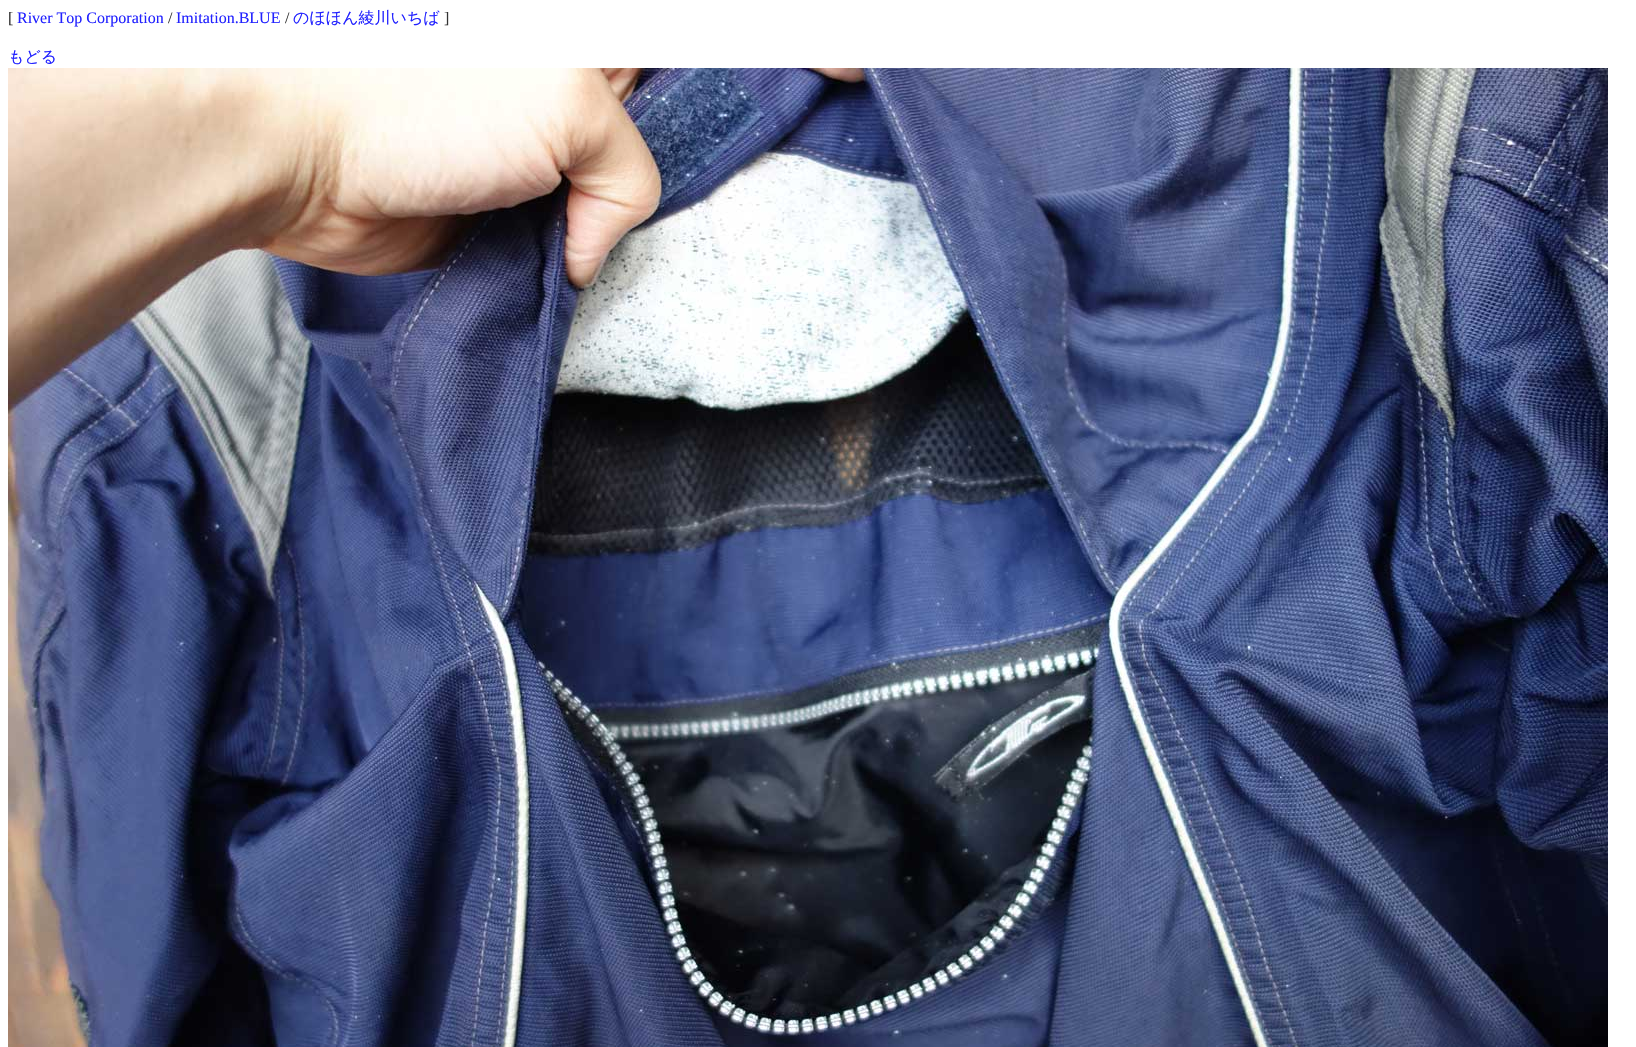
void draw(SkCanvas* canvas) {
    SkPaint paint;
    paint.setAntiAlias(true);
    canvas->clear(0xFFFFFFFF);
    SkFont font1(fontMgr->matchFamilyStyle("Liberation Serif", SkFontStyle::Normal()), 16);
    font1.setSubpixel(true);
    paint.setColor(0xFF333333);
    canvas->drawString("[", 8, 23, font1, paint);
    paint.setColor(0xFF2222FF);
    canvas->drawString("River Top Corporation", 17, 23, font1, paint);
    paint.setColor(0xFF333333);
    canvas->drawString("/", 168, 23, font1, paint);
    paint.setColor(0xFF2222FF);
    canvas->drawString("Imitation.BLUE", 176, 23, font1, paint);
    paint.setColor(0xFF333333);
    canvas->drawString("/", 285, 23, font1, paint);
    SkFont font2(fontMgr->matchFamilyStyle("WenQuanYi Zen Hei", SkFontStyle(500, SkFontStyle::kNormal_Width, SkFontStyle::kUpright_Slant)), 16);
    font2.setSubpixel(true);
    paint.setColor(0xFF2222FF);
    canvas->drawString("のほほん綾川いちば", 293, 23, font2, paint);
    paint.setColor(0xFF333333);
    canvas->drawString("]", 444, 23, font1, paint);
    paint.setColor(0xFF2222FF);
    canvas->drawString("もどる", 8, 62, font2, paint);
    canvas->drawImageRect(SkImages::DeferredFromEncodedData(SkData::MakeFromFileName("img1.png")), SkRect::MakeXYWH(8, 68, 1600, 979), SkSamplingOptions());
}
